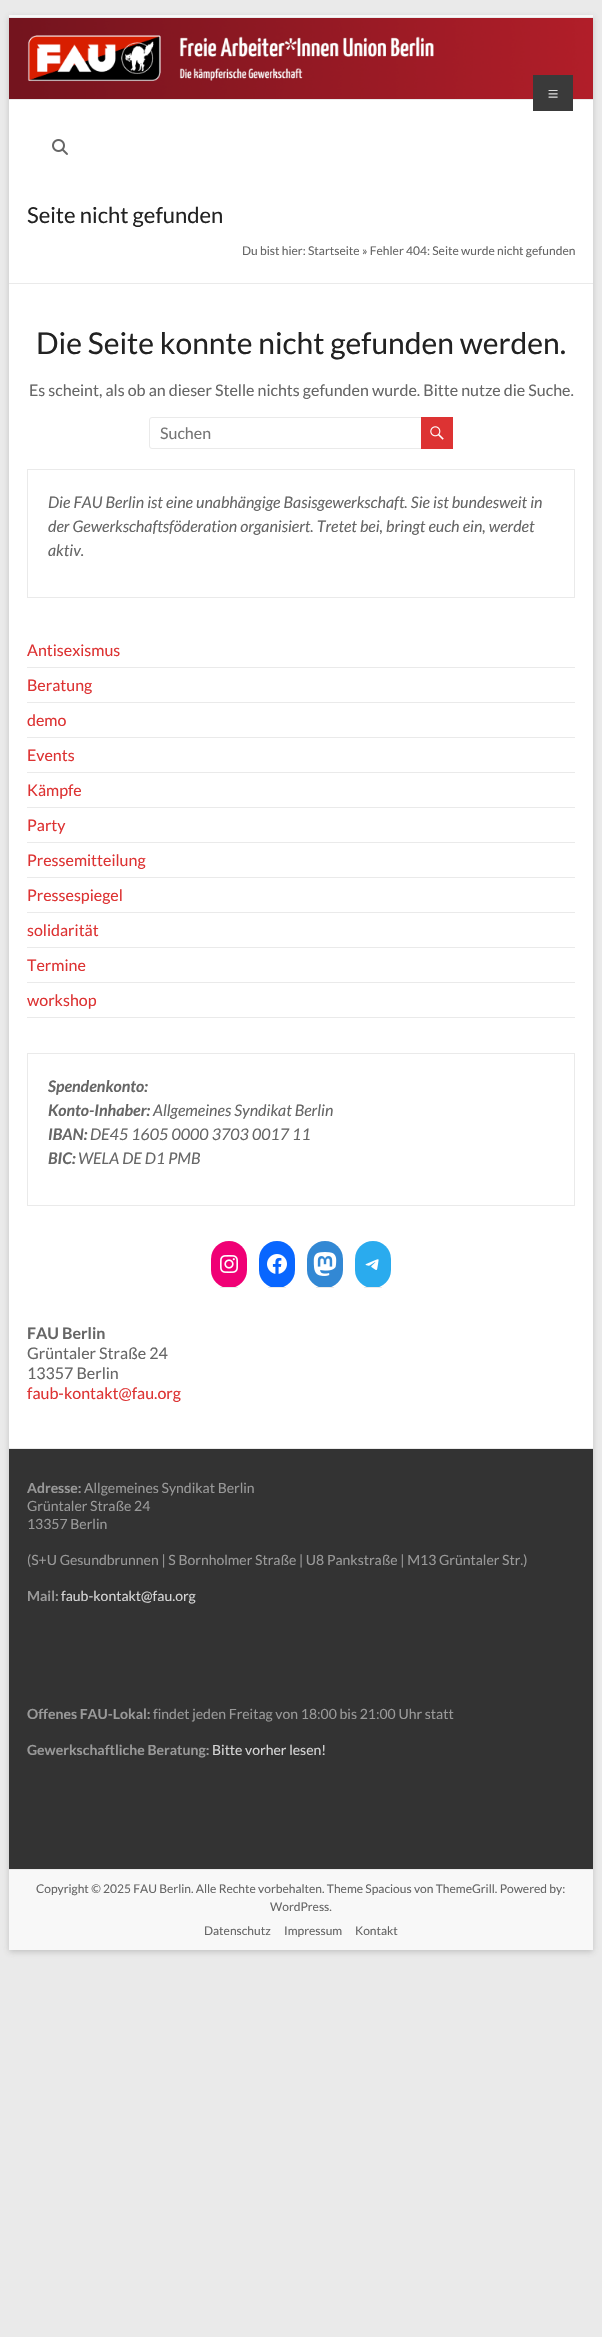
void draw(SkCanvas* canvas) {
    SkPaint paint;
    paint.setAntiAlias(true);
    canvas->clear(0xFFEAEAEA);
    paint.setColor(0x4D646464);
    paint.setMaskFilter(SkMaskFilter::MakeBlur(kNormal_SkBlurStyle, 3));
    canvas->drawRect(SkRect::MakeXYWH(9, 17, 584, 1935), paint);
    paint.setMaskFilter(nullptr);
    paint.setColor(0xFFFFFFFF);
    canvas->drawRect(SkRect::MakeXYWH(9, 100, 584, 1348), paint);
    paint.setColor(0xFFF8F8F8);
    canvas->drawRect(SkRect::MakeXYWH(9, 15, 584, 2), paint);
    paint.setColor(0xFFEAEAEA);
    canvas->drawRect(SkRect::MakeXYWH(9, 17, 584, 1), paint);
    canvas->drawImageRect(SkImages::DeferredFromEncodedData(SkData::MakeFromFileName("img1.png")), SkRect::MakeXYWH(9, 18, 584, 81), SkSamplingOptions());
    canvas->drawRect(SkRect::MakeXYWH(9, 99, 584, 1), paint);
    paint.setColor(0xFF3A3A3A);
    canvas->drawRect(SkRect::MakeXYWH(533, 75, 40, 36), paint);
    SkFont font1(fontMgr->matchFamilyStyle("Lato", SkFontStyle(300, SkFontStyle::kNormal_Width, SkFontStyle::kUpright_Slant)), 21);
    font1.setSubpixel(true);
    paint.setColor(0xFFFFFFFF);
    canvas->drawString("≡", 547, 101, font1, paint);
    canvas->drawImageRect(SkImages::DeferredFromEncodedData(SkData::MakeFromFileName("img2.png")), SkRect::MakeXYWH(52, 139, 16, 16), SkSamplingOptions());
    paint.setColor(0xFFEAEAEA);
    canvas->drawRect(SkRect::MakeXYWH(9, 283, 584, 1), paint);
    SkFont font2(fontMgr->matchFamilyStyle("Lato", SkFontStyle::Normal()), 22);
    font2.setSubpixel(true);
    paint.setColor(0xFF222222);
    canvas->drawString("Seite nicht gefunden", 27, 223, font2, paint);
    SkFont font3(fontMgr->matchFamilyStyle("Lato", SkFontStyle::Normal()), 12);
    font3.setSubpixel(true);
    paint.setColor(0xFF666666);
    canvas->drawString("Du bist hier: Startseite » Fehler 404: Seite wurde nicht gefunden", 242, 255, font3, paint);
    SkFont font4(fontMgr->matchFamilyStyle("Lato", SkFontStyle::Normal()), 30);
    font4.setSubpixel(true);
    paint.setColor(0xFF222222);
    canvas->drawString("Die Seite konnte nicht gefunden werden.", 36, 354, font4, paint);
    SkFont font5(fontMgr->matchFamilyStyle("Lato", SkFontStyle::Normal()), 16);
    font5.setSubpixel(true);
    paint.setColor(0xFF666666);
    canvas->drawString("Es scheint, als ob an dieser Stelle nichts gefunden wurde. Bitte nutze die Suche.", 29, 396, font5, paint);
    paint.setStyle(SkPaint::kStroke_Style);
    paint.setStrokeWidth(1);
    paint.setColor(0xFFEAEAEA);
    canvas->drawRoundRect(SkRect::MakeXYWH(149.5f, 417.5f, 274, 31), 2.5f, 2.5f, paint);
    paint.setStyle(SkPaint::kFill_Style);
    paint.setColor(0xFF757575);
    canvas->drawString("Suchen", 160, 439, font5, paint);
    paint.setColor(0xFFDD3333);
    canvas->drawRect(SkRect::MakeXYWH(421, 417, 32, 32), paint);
    canvas->drawImageRect(SkImages::DeferredFromEncodedData(SkData::MakeFromFileName("img3.png")), SkRect::MakeXYWH(430, 426, 14, 14), SkSamplingOptions());
    paint.setStyle(SkPaint::kStroke_Style);
    paint.setColor(0xFFEAEAEA);
    canvas->drawRect(SkRect::MakeXYWH(27.5f, 469.5f, 547, 128), paint);
    SkFont font6(fontMgr->matchFamilyStyle("Lato", SkFontStyle::Italic()), 16);
    font6.setSubpixel(true);
    paint.setStyle(SkPaint::kFill_Style);
    paint.setColor(0xFF666666);
    canvas->drawString("Die FAU Berlin ist eine unabhängige Basisgewerkschaft. Sie ist bundesweit in", 48, 508, font6, paint);
    canvas->drawString("der Gewerkschaftsföderation organisiert. Tretet bei, bringt euch ein, werdet", 48, 532, font6, paint);
    canvas->drawString("aktiv.", 48, 556, font6, paint);
    paint.setColor(0xFFEAEAEA);
    canvas->drawRect(SkRect::MakeXYWH(27, 667, 548, 1), paint);
    paint.setColor(0xFFDD3333);
    canvas->drawString("Antisexismus", 27, 656, font5, paint);
    paint.setColor(0xFFEAEAEA);
    canvas->drawRect(SkRect::MakeXYWH(27, 702, 548, 1), paint);
    paint.setColor(0xFFDD3333);
    canvas->drawString("Beratung", 27, 691, font5, paint);
    paint.setColor(0xFFEAEAEA);
    canvas->drawRect(SkRect::MakeXYWH(27, 737, 548, 1), paint);
    paint.setColor(0xFFDD3333);
    canvas->drawString("demo", 27, 726, font5, paint);
    paint.setColor(0xFFEAEAEA);
    canvas->drawRect(SkRect::MakeXYWH(27, 772, 548, 1), paint);
    paint.setColor(0xFFDD3333);
    canvas->drawString("Events", 27, 761, font5, paint);
    paint.setColor(0xFFEAEAEA);
    canvas->drawRect(SkRect::MakeXYWH(27, 807, 548, 1), paint);
    paint.setColor(0xFFDD3333);
    canvas->drawString("Kämpfe", 27, 796, font5, paint);
    paint.setColor(0xFFEAEAEA);
    canvas->drawRect(SkRect::MakeXYWH(27, 842, 548, 1), paint);
    paint.setColor(0xFFDD3333);
    canvas->drawString("Party", 27, 831, font5, paint);
    paint.setColor(0xFFEAEAEA);
    canvas->drawRect(SkRect::MakeXYWH(27, 877, 548, 1), paint);
    paint.setColor(0xFFDD3333);
    canvas->drawString("Pressemitteilung", 27, 866, font5, paint);
    paint.setColor(0xFFEAEAEA);
    canvas->drawRect(SkRect::MakeXYWH(27, 912, 548, 1), paint);
    paint.setColor(0xFFDD3333);
    canvas->drawString("Pressespiegel", 27, 901, font5, paint);
    paint.setColor(0xFFEAEAEA);
    canvas->drawRect(SkRect::MakeXYWH(27, 947, 548, 1), paint);
    paint.setColor(0xFFDD3333);
    canvas->drawString("solidarität", 27, 936, font5, paint);
    paint.setColor(0xFFEAEAEA);
    canvas->drawRect(SkRect::MakeXYWH(27, 982, 548, 1), paint);
    paint.setColor(0xFFDD3333);
    canvas->drawString("Termine", 27, 971, font5, paint);
    paint.setColor(0xFFEAEAEA);
    canvas->drawRect(SkRect::MakeXYWH(27, 1017, 548, 1), paint);
    paint.setColor(0xFFDD3333);
    canvas->drawString("workshop", 27, 1006, font5, paint);
    paint.setStyle(SkPaint::kStroke_Style);
    paint.setColor(0xFFEAEAEA);
    canvas->drawRect(SkRect::MakeXYWH(27.5f, 1053.5f, 547, 152), paint);
    SkFont font7(fontMgr->matchFamilyStyle("Lato", SkFontStyle::BoldItalic()), 16);
    font7.setSubpixel(true);
    paint.setStyle(SkPaint::kFill_Style);
    paint.setColor(0xFF666666);
    canvas->drawString("Spendenkonto:", 48, 1092, font7, paint);
    canvas->drawString("Konto-Inhaber:", 48, 1116, font7, paint);
    canvas->drawString("Allgemeines Syndikat Berlin", 153, 1116, font6, paint);
    canvas->drawString("IBAN:", 48, 1140, font7, paint);
    canvas->drawString("DE45 1605 0000 3703 0017 11", 90, 1140, font6, paint);
    canvas->drawString("BIC:", 48, 1164, font7, paint);
    canvas->drawString("WELA DE D1 PMB", 78, 1164, font6, paint);
    paint.setColor(0xFFF00075);
    canvas->drawRoundRect(SkRect::MakeXYWH(211, 1241, 36, 47), 18, 18, paint);
    paint.setColor(0xFFEAEAEA);
    canvas->drawRect(SkRect::MakeXYWH(220, 1287, 18, 1), paint);
    canvas->drawImageRect(SkImages::DeferredFromEncodedData(SkData::MakeFromFileName("img4.png")), SkRect::MakeXYWH(220, 1255, 18, 18), SkSamplingOptions());
    paint.setColor(0xFF0866FF);
    canvas->drawRoundRect(SkRect::MakeXYWH(259, 1241, 36, 47), 18, 18, paint);
    paint.setColor(0xFFEAEAEA);
    canvas->drawRect(SkRect::MakeXYWH(268, 1287, 18, 1), paint);
    canvas->drawImageRect(SkImages::DeferredFromEncodedData(SkData::MakeFromFileName("img5.png")), SkRect::MakeXYWH(267, 1254, 20, 20), SkSamplingOptions());
    paint.setColor(0xFF3288D4);
    canvas->drawRoundRect(SkRect::MakeXYWH(307, 1241, 36, 47), 18, 18, paint);
    paint.setColor(0xFFEAEAEA);
    canvas->drawRect(SkRect::MakeXYWH(316, 1287, 18, 1), paint);
    canvas->drawImageRect(SkImages::DeferredFromEncodedData(SkData::MakeFromFileName("img6.png")), SkRect::MakeXYWH(313, 1252, 24, 24), SkSamplingOptions());
    paint.setColor(0xFF2AABEE);
    canvas->drawRoundRect(SkRect::MakeXYWH(355, 1241, 36, 47), 18, 18, paint);
    paint.setColor(0xFFEAEAEA);
    canvas->drawRect(SkRect::MakeXYWH(364, 1287, 18, 1), paint);
    canvas->drawImageRect(SkImages::DeferredFromEncodedData(SkData::MakeFromFileName("img7.png")), SkRect::MakeXYWH(365, 1259, 14, 11), SkSamplingOptions());
    SkFont font8(fontMgr->matchFamilyStyle("Lato", SkFontStyle::Bold()), 16);
    font8.setSubpixel(true);
    paint.setColor(0xFF666666);
    canvas->drawString("FAU Berlin", 27, 1339, font8, paint);
    canvas->drawString("Grüntaler Straße 24", 27, 1359, font5, paint);
    canvas->drawString("13357 Berlin", 27, 1379, font5, paint);
    paint.setColor(0xFFDD3333);
    canvas->drawString("faub-kontakt@fau.org", 27, 1399, font5, paint);
    paint.setColor(0xFF333333);
    canvas->drawRect(SkRect::MakeXYWH(9, 1449, 584, 420), paint);
    paint.setColor(0xFFEAEAEA);
    canvas->drawRect(SkRect::MakeXYWH(9, 1448, 584, 1), paint);
    SkFont font9(fontMgr->matchFamilyStyle("Lato", SkFontStyle::Bold()), 14);
    font9.setSubpixel(true);
    paint.setColor(0xFF999999);
    canvas->drawString("Adresse:", 27, 1493, font9, paint);
    SkFont font10(fontMgr->matchFamilyStyle("Lato", SkFontStyle::Normal()), 14);
    font10.setSubpixel(true);
    canvas->drawString("Allgemeines Syndikat Berlin", 84, 1493, font10, paint);
    canvas->drawString("Grüntaler Straße 24", 27, 1511, font10, paint);
    canvas->drawString("13357 Berlin", 27, 1529, font10, paint);
    canvas->drawString("(S+U Gesundbrunnen | S Bornholmer Straße | U8 Pankstraße | M13 Grüntaler Str.)", 27, 1565, font10, paint);
    canvas->drawString("Mail:", 27, 1601, font9, paint);
    paint.setColor(0xFFD5D5D5);
    canvas->drawString("faub-kontakt@fau.org", 61, 1601, font10, paint);
    paint.setColor(0xFF999999);
    canvas->drawString("Offenes FAU-Lokal:", 27, 1719, font9, paint);
    canvas->drawString("findet jeden Freitag von 18:00 bis 21:00 Uhr statt", 153, 1719, font10, paint);
    canvas->drawString("Gewerkschaftliche Beratung:", 27, 1755, font9, paint);
    paint.setColor(0xFFD5D5D5);
    canvas->drawString("Bitte vorher lesen!", 212, 1755, font10, paint);
    paint.setColor(0xFFF8F8F8);
    canvas->drawRect(SkRect::MakeXYWH(9, 1870, 584, 80), paint);
    paint.setColor(0xFFEAEAEA);
    canvas->drawRect(SkRect::MakeXYWH(9, 1869, 584, 1), paint);
    paint.setColor(0xFF666666);
    canvas->drawString("Copyright © 2025 FAU Berlin. Alle Rechte vorbehalten. Theme Spacious von ThemeGrill. Powered by:", 36, 1893, font3, paint);
    canvas->drawString("WordPress.", 270, 1911, font3, paint);
    canvas->drawString("Datenschutz", 204, 1935, font3, paint);
    canvas->drawString("Impressum", 284, 1935, font3, paint);
    canvas->drawString("Kontakt", 355, 1935, font3, paint);
}
